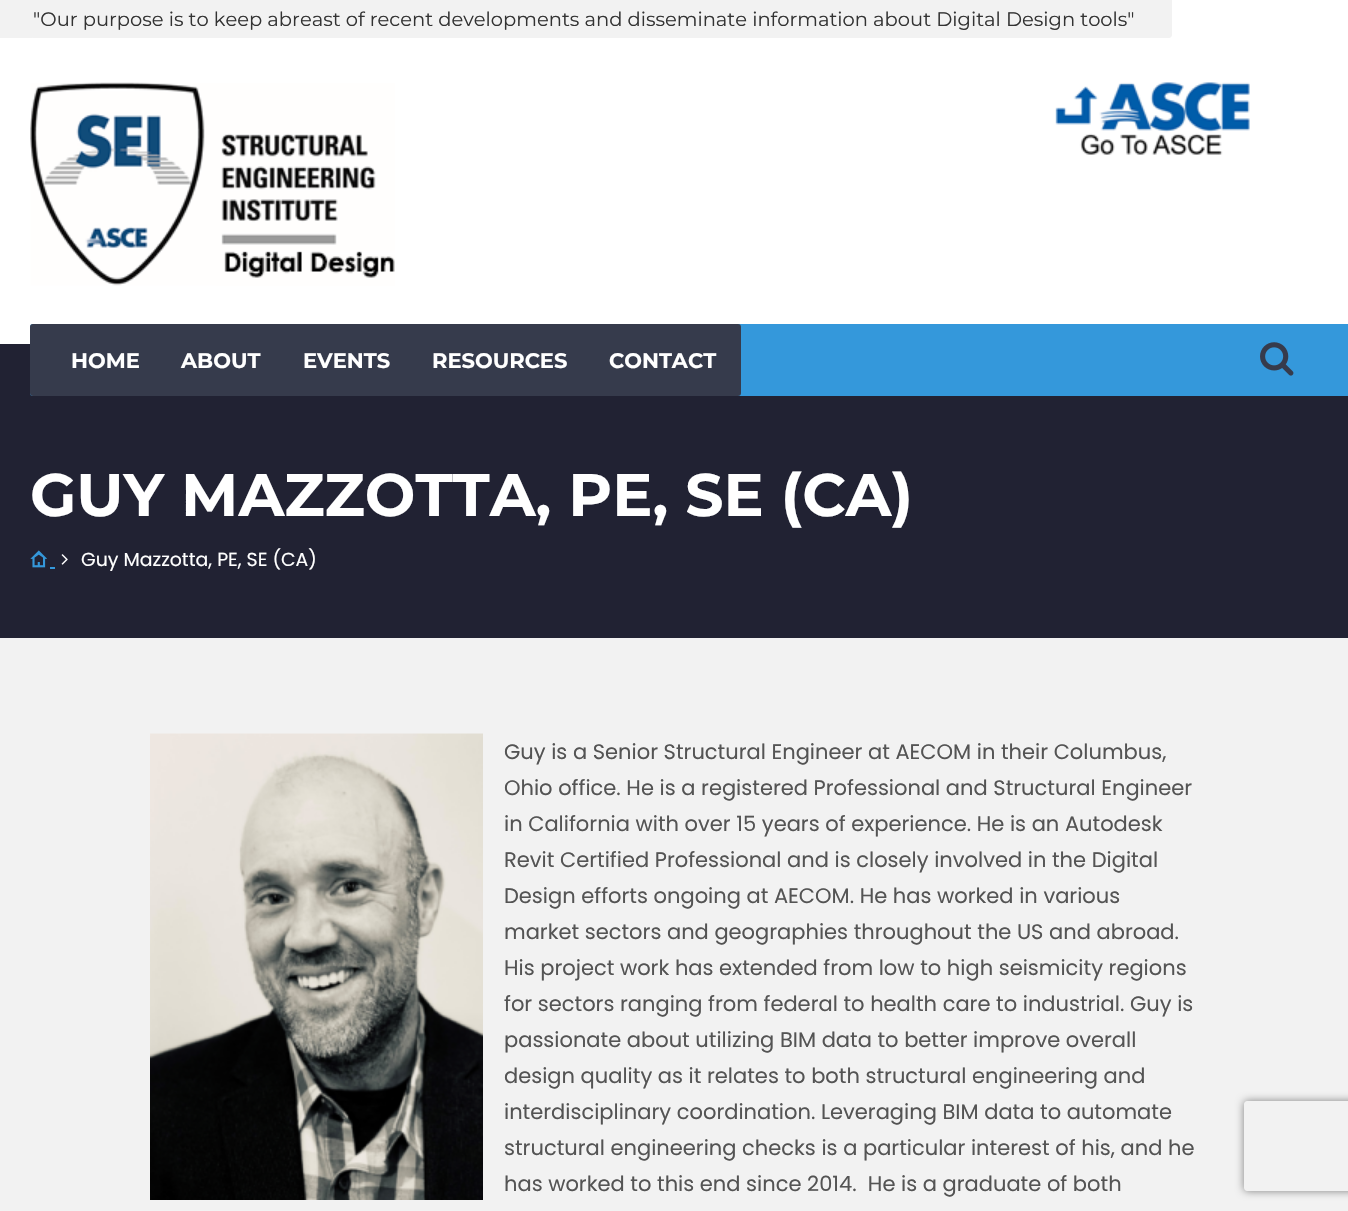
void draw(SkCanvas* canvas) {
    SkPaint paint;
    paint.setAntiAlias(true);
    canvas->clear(0xFFF2F2F2);
    paint.setColor(0xFFFFFFFF);
    canvas->drawRect(SkRect::MakeXYWH(0, 0, 1348, 344), paint);
    paint.setColor(0xFFF2F2F2);
    canvas->drawPath(SkPathBuilder().moveTo(30, 0).lineTo(1172, 0).lineTo(1172, 35).cubicTo(1172, 36.5f, 1170.5f, 38, 1169, 38).lineTo(33, 38).cubicTo(31.5f, 38, 30, 36.5f, 30, 35).close().detach(), paint);
    canvas->drawRect(SkRect::MakeXYWH(0, 0, 32, 38), paint);
    SkFont font1(fontMgr->matchFamilyStyle("Montserrat", SkFontStyle::Normal()), 19.5f);
    font1.setSubpixel(true);
    paint.setColor(0xFF333333);
    canvas->drawString("\"Our purpose is to keep abreast of recent developments and disseminate information about Digital Design tools\"", 33, 26, font1, paint);
    canvas->drawImageRect(SkImages::DeferredFromEncodedData(SkData::MakeFromFileName("img1.png")), SkRect::MakeXYWH(30, 82, 365, 204), SkSamplingOptions());
    canvas->drawImageRect(SkImages::DeferredFromEncodedData(SkData::MakeFromFileName("img2.png")), SkRect::MakeXYWH(1055, 82, 195, 73), SkSamplingOptions());
    paint.setColor(0xFF212233);
    canvas->drawRect(SkRect::MakeXYWH(0, 344, 1348, 294), paint);
    paint.setColor(0xFF3498DB);
    canvas->drawRoundRect(SkRect::MakeXYWH(30, 324, 1289, 72), 3, 3, paint);
    paint.setColor(0xFF363B4C);
    canvas->drawRoundRect(SkRect::MakeXYWH(30, 324, 711, 72), 3, 3, paint);
    SkFont font2(fontMgr->matchFamilyStyle("Montserrat", SkFontStyle::Bold()), 21);
    font2.setSubpixel(true);
    paint.setColor(0xFFFFFFFF);
    canvas->drawString("HOME", 71, 368, font2, paint);
    canvas->drawString("ABOUT", 181, 368, font2, paint);
    canvas->drawString("EVENTS", 303, 368, font2, paint);
    canvas->drawString("RESOURCES", 432, 368, font2, paint);
    canvas->drawString("CONTACT", 609, 368, font2, paint);
    canvas->drawImageRect(SkImages::DeferredFromEncodedData(SkData::MakeFromFileName("img3.png")), SkRect::MakeXYWH(1260, 342, 34, 34), SkSamplingOptions());
    paint.setColor(0xFF3498DB);
    canvas->drawRect(SkRect::MakeXYWH(1316, 324, 32, 72), paint);
    SkFont font3(fontMgr->matchFamilyStyle("Montserrat", SkFontStyle::Bold()), 60);
    font3.setSubpixel(true);
    paint.setColor(0xFFFFFFFF);
    canvas->drawString("GUY MAZZOTTA, PE, SE (CA)", 30, 516, font3, paint);
    canvas->drawImageRect(SkImages::DeferredFromEncodedData(SkData::MakeFromFileName("img4.png")), SkRect::MakeXYWH(30, 550, 17, 18), SkSamplingOptions());
    paint.setColor(0xFF3498DB);
    canvas->drawRect(SkRect::MakeXYWH(50, 567, 5, 2), paint);
    canvas->drawImageRect(SkImages::DeferredFromEncodedData(SkData::MakeFromFileName("img5.png")), SkRect::MakeXYWH(61, 554, 7, 11), SkSamplingOptions());
    SkFont font4(fontMgr->matchFamilyStyle("Poppins", SkFontStyle::Normal()), 18.9f);
    font4.setSubpixel(true);
    paint.setColor(0xFFFFFFFF);
    canvas->drawString("Guy Mazzotta, PE, SE (CA)", 81, 566, font4, paint);
    canvas->drawImageRect(SkImages::DeferredFromEncodedData(SkData::MakeFromFileName("img6.png")), SkRect::MakeXYWH(150, 733, 333, 467), SkSamplingOptions());
    SkFont font5(fontMgr->matchFamilyStyle("Poppins", SkFontStyle::Normal()), 21);
    font5.setSubpixel(true);
    paint.setColor(0xFF545454);
    canvas->drawString("Guy is a Senior Structural Engineer at AECOM in their Columbus,", 504, 759, font5, paint);
    canvas->drawString("Ohio office. He is a registered Professional and Structural Engineer", 504, 795, font5, paint);
    canvas->drawString("in California with over 15 years of experience. He is an Autodesk", 504, 831, font5, paint);
    canvas->drawString("Revit Certified Professional and is closely involved in the Digital", 504, 867, font5, paint);
    canvas->drawString("Design efforts ongoing at AECOM. He has worked in various", 504, 903, font5, paint);
    canvas->drawString("market sectors and geographies throughout the US and abroad.", 504, 939, font5, paint);
    canvas->drawString("His project work has extended from low to high seismicity regions", 504, 975, font5, paint);
    canvas->drawString("for sectors ranging from federal to health care to industrial. Guy is", 504, 1011, font5, paint);
    canvas->drawString("passionate about utilizing BIM data to better improve overall", 504, 1047, font5, paint);
    canvas->drawString("design quality as it relates to both structural engineering and", 504, 1083, font5, paint);
    canvas->drawString("interdisciplinary coordination. Leveraging BIM data to automate", 504, 1119, font5, paint);
    canvas->drawString("structural engineering checks is a particular interest of his, and he", 504, 1155, font5, paint);
    canvas->drawString("has worked to this end since 2014.  He is a graduate of both", 504, 1191, font5, paint);
    canvas->save();
    canvas->clipPath(SkPathBuilder(SkPathFillType::kEvenOdd).moveTo(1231, 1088).lineTo(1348, 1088).lineTo(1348, 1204).lineTo(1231, 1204).close().moveTo(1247, 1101).lineTo(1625, 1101).cubicTo(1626.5f, 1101, 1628, 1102.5f, 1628, 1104).lineTo(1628, 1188).cubicTo(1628, 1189.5f, 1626.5f, 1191, 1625, 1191).lineTo(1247, 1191).cubicTo(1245.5f, 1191, 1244, 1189.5f, 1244, 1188).lineTo(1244, 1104).cubicTo(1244, 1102.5f, 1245.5f, 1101, 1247, 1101).close().detach(), true);
    paint.setColor(0xFF808080);
    paint.setMaskFilter(SkMaskFilter::MakeBlur(kNormal_SkBlurStyle, 4));
    canvas->drawRoundRect(SkRect::MakeXYWH(1244, 1101, 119, 90), 3, 3, paint);
    paint.setMaskFilter(nullptr);
    canvas->restore();
}
